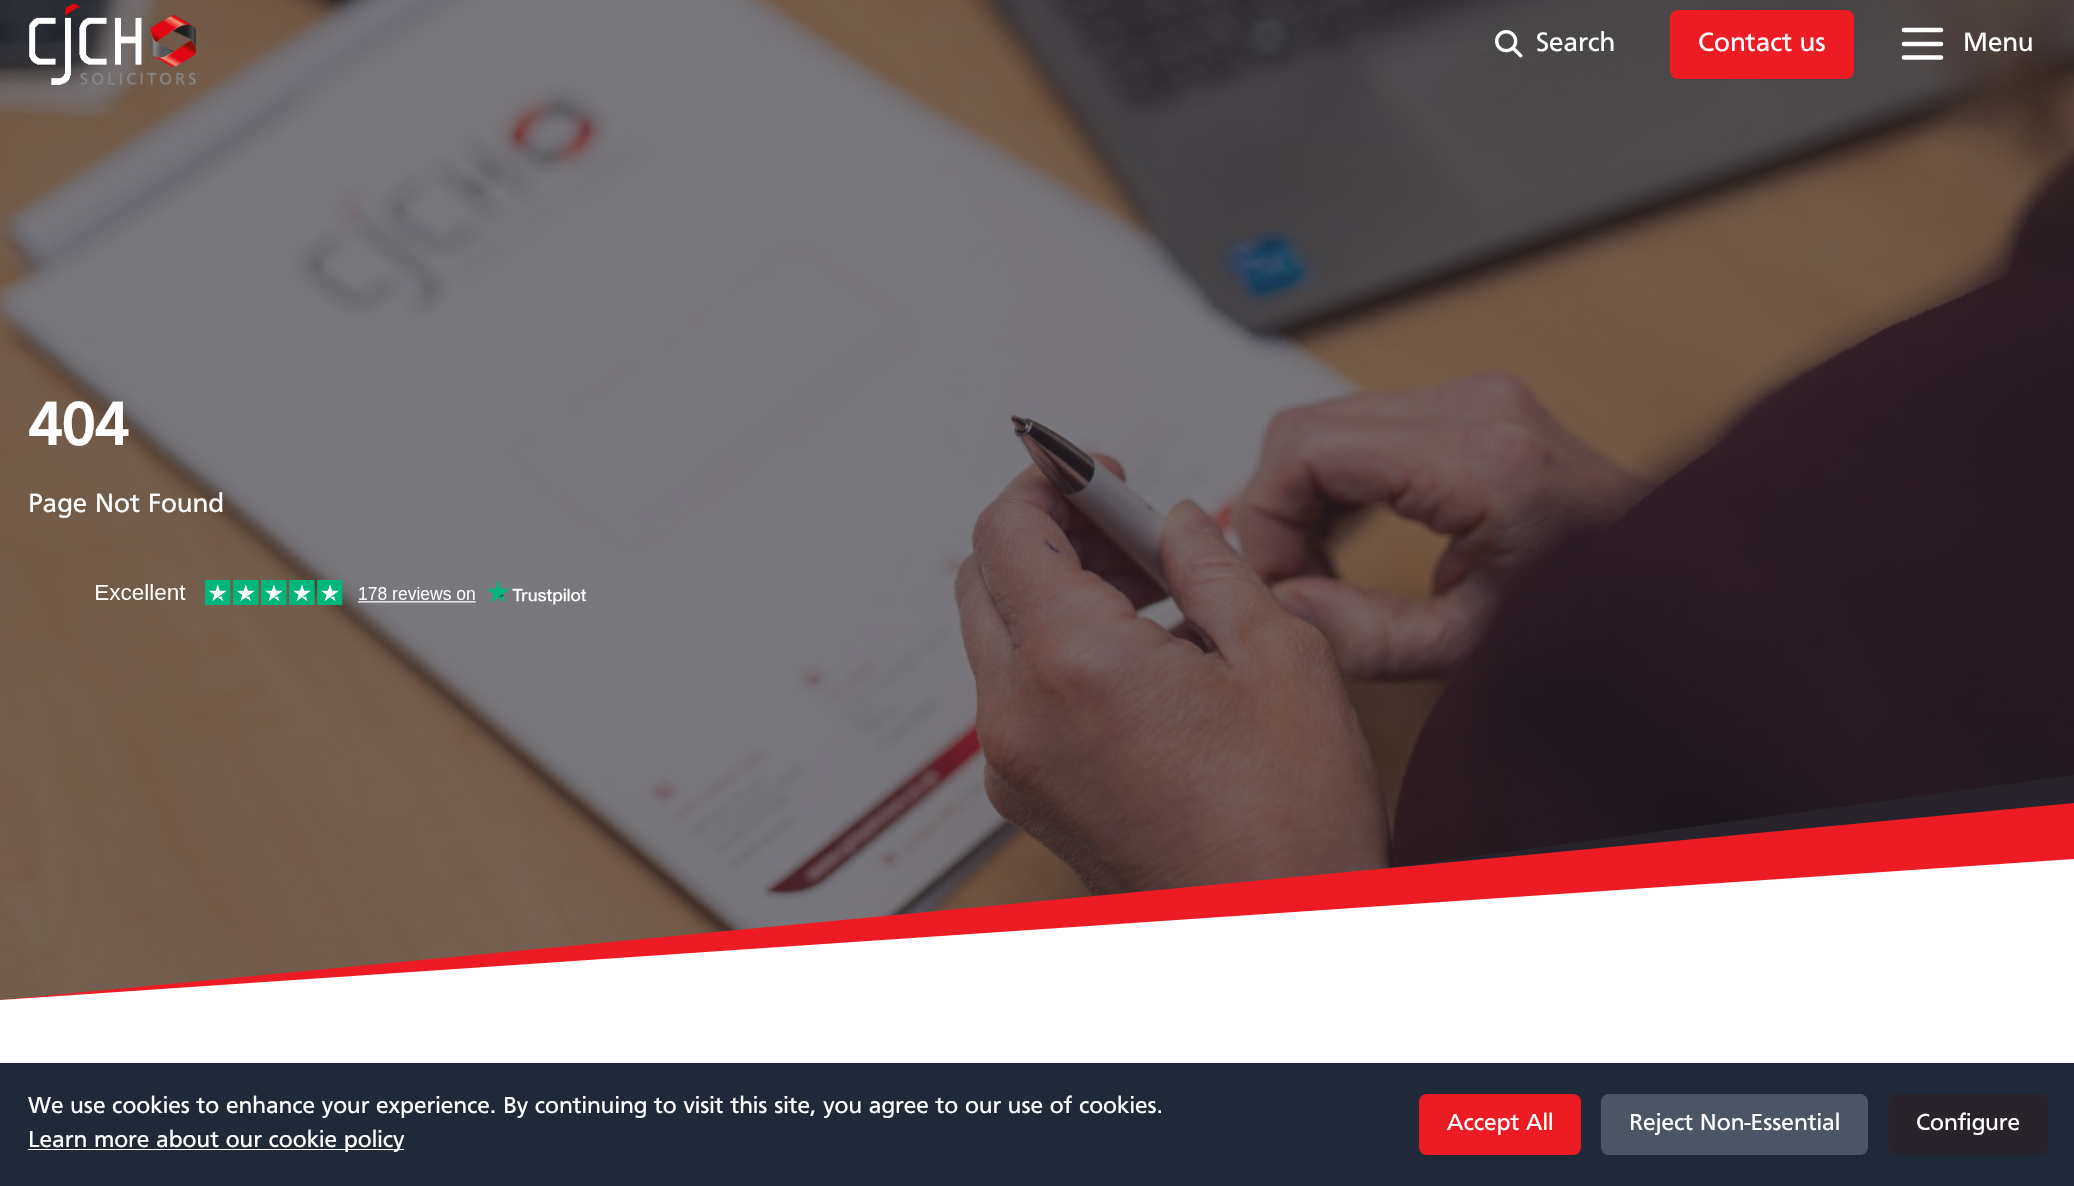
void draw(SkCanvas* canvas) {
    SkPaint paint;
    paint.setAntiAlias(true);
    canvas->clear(0xFFFFFFFF);
    canvas->drawImageRect(SkImages::DeferredFromEncodedData(SkData::MakeFromFileName("img3.png")), SkRect::MakeXYWH(0, 0, 2074, 1000), SkSamplingOptions());
    canvas->drawImageRect(SkImages::DeferredFromEncodedData(SkData::MakeFromFileName("img1.png")), SkRect::MakeXYWH(29, 3, 167, 82), SkSamplingOptions());
    canvas->drawImageRect(SkImages::DeferredFromEncodedData(SkData::MakeFromFileName("img2.png")), SkRect::MakeXYWH(1495, 30, 28, 28), SkSamplingOptions());
    SkFont font1(fontMgr->matchFamilyStyle("Frutiger", SkFontStyle::Normal()), 27.5f);
    font1.setSubpixel(true);
    paint.setColor(0xFFFFFFFF);
    canvas->drawString("Search", 1536, 51, font1, paint);
    paint.setColor(0xFFED1C24);
    canvas->drawRoundRect(SkRect::MakeXYWH(1670, 10, 184, 69), 8, 8, paint);
    paint.setColor(0xFFFFFFFF);
    canvas->drawString("Contact us", 1698, 51, font1, paint);
    paint.setStyle(SkPaint::kStroke_Style);
    paint.setStrokeWidth(4.6f);
    paint.setStrokeCap(SkPaint::kRound_Cap);
    paint.setStrokeJoin(SkPaint::kRound_Join);
    canvas->drawPath(SkPathBuilder().moveTo(1904, 30).lineTo(1941, 30).moveTo(1904, 44).lineTo(1941, 44).moveTo(1904, 57.5f).lineTo(1941, 57.5f).detach(), paint);
    paint.setStyle(SkPaint::kFill_Style);
    canvas->drawString("Menu", 1963, 51, font1, paint);
    SkFont font2(fontMgr->matchFamilyStyle("Frutiger", SkFontStyle::Bold()), 62);
    font2.setSubpixel(true);
    canvas->drawString("404", 28, 445, font2, paint);
    canvas->drawString("Page Not Found", 28, 512, font1, paint);
    canvas->drawImageRect(SkImages::DeferredFromEncodedData(SkData::MakeFromFileName("img4.png")), SkRect::MakeXYWH(96, 580, 491, 25), SkSamplingOptions());
    canvas->save();
    canvas->clipRect(SkRect::MakeXYWH(0, 775, 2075, 225));
    paint.setColor(0xFF28232A);
    canvas->drawPath(SkPathBuilder().moveTo(0, 1056).lineTo(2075, 888).lineTo(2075, 775).close().detach(), paint);
    canvas->restore();
    paint.setColor(0xFFED1C24);
    canvas->drawPath(SkPathBuilder().moveTo(0, 1000).lineTo(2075, 944).lineTo(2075, 803).close().detach(), paint);
    paint.setColor(0xFFFFFFFF);
    canvas->drawPath(SkPathBuilder().moveTo(0, 1000).lineTo(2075, 1000).lineTo(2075, 859).close().detach(), paint);
    paint.setColor(0xFF1F2937);
    canvas->drawRect(SkRect::MakeXYWH(0, 1063, 2074, 123), paint);
    SkFont font3(fontMgr->matchFamilyStyle("Frutiger", SkFontStyle::Normal()), 24.05f);
    font3.setSubpixel(true);
    paint.setColor(0xFFFFFFFF);
    canvas->drawString("We use cookies to enhance your experience. By continuing to visit this site, you agree to our use of cookies.", 28, 1113, font3, paint);
    canvas->drawRect(SkRect::MakeXYWH(28, 1149, 376, 1), paint);
    canvas->drawString("Learn more about our cookie policy", 28, 1147, font3, paint);
    paint.setColor(0xFFED1C24);
    canvas->drawRoundRect(SkRect::MakeXYWH(1419, 1094, 162, 61), 8, 8, paint);
    paint.setColor(0xFFFFFFFF);
    canvas->drawString("Accept All", 1447, 1130, font3, paint);
    paint.setColor(0xFF4B5563);
    canvas->drawRoundRect(SkRect::MakeXYWH(1601, 1094, 267, 61), 8, 8, paint);
    paint.setColor(0xFFFFFFFF);
    canvas->drawString("Reject Non-Essential", 1629, 1130, font3, paint);
    paint.setColor(0xFF28232A);
    canvas->drawRoundRect(SkRect::MakeXYWH(1889, 1094, 159, 61), 8, 8, paint);
    paint.setColor(0xFFFFFFFF);
    canvas->drawString("Configure", 1916, 1130, font3, paint);
}
